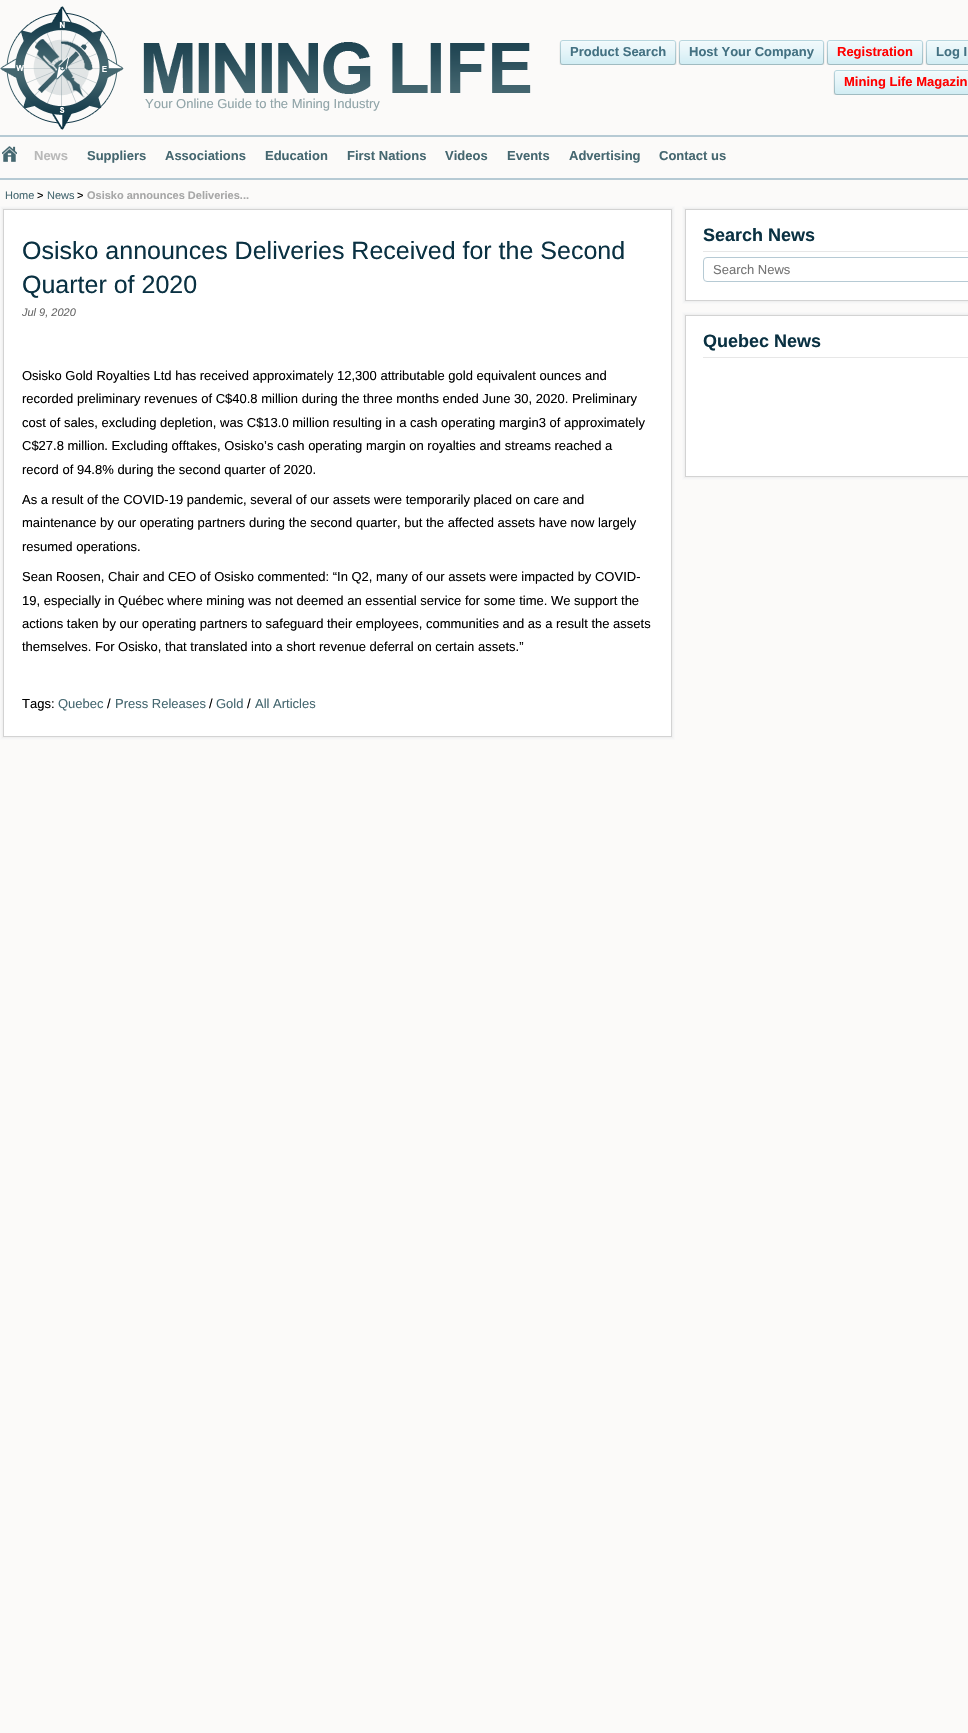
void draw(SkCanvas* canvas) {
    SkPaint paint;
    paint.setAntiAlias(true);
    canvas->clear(0xFFFBFAF9);
    canvas->drawImageRect(SkImages::DeferredFromEncodedData(SkData::MakeFromFileName("img1.png")), SkRect::MakeXYWH(559, 40, 4, 25), SkSamplingOptions());
    canvas->drawImageRect(SkImages::DeferredFromEncodedData(SkData::MakeFromFileName("img2.png")), SkRect::MakeXYWH(563, 40, 114, 25), SkSamplingOptions());
    SkFont font1(fontMgr->matchFamilyStyle("Liberation Sans", SkFontStyle::Bold()), 13);
    font1.setSubpixel(true);
    paint.setColor(0xFF437182);
    canvas->drawString("Product Search", 570, 56, font1, paint);
    canvas->drawImageRect(SkImages::DeferredFromEncodedData(SkData::MakeFromFileName("img1.png")), SkRect::MakeXYWH(678, 40, 4, 25), SkSamplingOptions());
    canvas->drawImageRect(SkImages::DeferredFromEncodedData(SkData::MakeFromFileName("img3.png")), SkRect::MakeXYWH(682, 40, 143, 25), SkSamplingOptions());
    canvas->drawString("Host Your Company", 689, 56, font1, paint);
    canvas->drawImageRect(SkImages::DeferredFromEncodedData(SkData::MakeFromFileName("img1.png")), SkRect::MakeXYWH(826, 40, 4, 25), SkSamplingOptions());
    canvas->drawImageRect(SkImages::DeferredFromEncodedData(SkData::MakeFromFileName("img4.png")), SkRect::MakeXYWH(830, 40, 94, 25), SkSamplingOptions());
    paint.setColor(0xFFFF0000);
    canvas->drawString("Registration", 837, 56, font1, paint);
    canvas->drawImageRect(SkImages::DeferredFromEncodedData(SkData::MakeFromFileName("img1.png")), SkRect::MakeXYWH(925, 40, 4, 25), SkSamplingOptions());
    canvas->drawImageRect(SkImages::DeferredFromEncodedData(SkData::MakeFromFileName("img5.png")), SkRect::MakeXYWH(929, 40, 39, 25), SkSamplingOptions());
    paint.setColor(0xFF437182);
    canvas->drawString("Log I", 936, 56, font1, paint);
    canvas->drawImageRect(SkImages::DeferredFromEncodedData(SkData::MakeFromFileName("img1.png")), SkRect::MakeXYWH(833, 70, 4, 25), SkSamplingOptions());
    canvas->drawImageRect(SkImages::DeferredFromEncodedData(SkData::MakeFromFileName("img6.png")), SkRect::MakeXYWH(837, 70, 131, 25), SkSamplingOptions());
    paint.setColor(0xFFFF0000);
    canvas->drawString("Mining Life Magazin", 844, 86, font1, paint);
    canvas->drawImageRect(SkImages::DeferredFromEncodedData(SkData::MakeFromFileName("img7.png")), SkRect::MakeXYWH(0, 6, 531, 124), SkSamplingOptions());
    SkFont font2(fontMgr->matchFamilyStyle("Liberation Sans", SkFontStyle::Normal()), 13);
    font2.setSubpixel(true);
    paint.setColor(0xFF90A4A8);
    canvas->drawString("Your Online Guide to the Mining Industry", 145, 108, font2, paint);
    paint.setColor(0xFFB6CAD4);
    canvas->drawRect(SkRect::MakeXYWH(0, 135, 968, 2), paint);
    canvas->drawRect(SkRect::MakeXYWH(0, 178, 968, 2), paint);
    canvas->drawImageRect(SkImages::DeferredFromEncodedData(SkData::MakeFromFileName("img8.png")), SkRect::MakeXYWH(2, 146, 15, 16), SkSamplingOptions());
    paint.setColor(0xFFB9B9B9);
    canvas->drawString("News", 34, 160, font1, paint);
    paint.setColor(0xFF456770);
    canvas->drawString("Suppliers", 87, 160, font1, paint);
    canvas->drawString("Associations", 165, 160, font1, paint);
    canvas->drawString("Education", 265, 160, font1, paint);
    canvas->drawString("First Nations", 347, 160, font1, paint);
    canvas->drawString("Videos", 445, 160, font1, paint);
    canvas->drawString("Events", 507, 160, font1, paint);
    canvas->drawString("Advertising", 569, 160, font1, paint);
    canvas->drawString("Contact us", 659, 160, font1, paint);
    SkFont font3(fontMgr->matchFamilyStyle("Liberation Sans", SkFontStyle::Normal()), 11);
    font3.setSubpixel(true);
    canvas->drawString("Home", 5, 199, font3, paint);
    paint.setColor(0xFF000000);
    canvas->drawString(">", 37, 199, font3, paint);
    paint.setColor(0xFF456770);
    canvas->drawString("News", 47, 199, font3, paint);
    paint.setColor(0xFF000000);
    canvas->drawString(">", 77, 199, font3, paint);
    SkFont font4(fontMgr->matchFamilyStyle("Liberation Sans", SkFontStyle::Bold()), 11);
    font4.setSubpixel(true);
    paint.setColor(0xFFA7A7A7);
    canvas->drawString("Osisko announces Deliveries...", 87, 199, font4, paint);
    paint.setColor(0xFFFFFFFF);
    canvas->drawRect(SkRect::MakeXYWH(4, 210, 667, 526), paint);
    paint.setStyle(SkPaint::kStroke_Style);
    paint.setStrokeWidth(1);
    paint.setColor(0xFFF8F8F8);
    canvas->drawRect(SkRect::MakeXYWH(0.5f, 206.5f, 674, 533), paint);
    paint.setColor(0xFFF5F5F5);
    canvas->drawRect(SkRect::MakeXYWH(1.5f, 207.5f, 672, 531), paint);
    paint.setColor(0xFFF0F0F0);
    canvas->drawRect(SkRect::MakeXYWH(2.5f, 208.5f, 670, 529), paint);
    paint.setColor(0xFFD3D3D3);
    canvas->drawRect(SkRect::MakeXYWH(3.5f, 209.5f, 668, 527), paint);
    SkFont font5(fontMgr->matchFamilyStyle("Liberation Sans", SkFontStyle::Normal()), 25);
    font5.setSubpixel(true);
    paint.setStyle(SkPaint::kFill_Style);
    paint.setColor(0xFF0A3142);
    canvas->drawString("Osisko announces Deliveries Received for the Second", 22, 259, font5, paint);
    canvas->drawString("Quarter of 2020", 22, 293, font5, paint);
    SkFont font6(fontMgr->matchFamilyStyle("Liberation Sans", SkFontStyle::Italic()), 11);
    font6.setSubpixel(true);
    paint.setColor(0xFF696969);
    canvas->drawString("Jul 9, 2020", 22, 316, font6, paint);
    paint.setColor(0xFF000000);
    canvas->drawString("Osisko Gold Royalties Ltd has received approximately 12,300 attributable gold equivalent ounces and", 22, 380, font2, paint);
    canvas->drawString("recorded preliminary revenues of C$40.8 million during the three months ended June 30, 2020. Preliminary", 22, 403, font2, paint);
    canvas->drawString("cost of sales, excluding depletion, was C$13.0 million resulting in a cash operating margin3 of approximately", 22, 427, font2, paint);
    canvas->drawString("C$27.8 million. Excluding offtakes, Osisko’s cash operating margin on royalties and streams reached a", 22, 450, font2, paint);
    canvas->drawString("record of 94.8% during the second quarter of 2020.", 22, 474, font2, paint);
    canvas->drawString("As a result of the COVID-19 pandemic, several of our assets were temporarily placed on care and", 22, 504, font2, paint);
    canvas->drawString("maintenance by our operating partners during the second quarter, but the affected assets have now largely", 22, 527, font2, paint);
    canvas->drawString("resumed operations.", 22, 551, font2, paint);
    canvas->drawString("Sean Roosen, Chair and CEO of Osisko commented: “In Q2, many of our assets were impacted by COVID-", 22, 581, font2, paint);
    canvas->drawString("19, especially in Québec where mining was not deemed an essential service for some time. We support the", 22, 605, font2, paint);
    canvas->drawString("actions taken by our operating partners to safeguard their employees, communities and as a result the assets", 22, 628, font2, paint);
    canvas->drawString("themselves. For Osisko, that translated into a short revenue deferral on certain assets.”", 22, 651, font2, paint);
    canvas->drawString("Tags:", 22, 708, font2, paint);
    paint.setColor(0xFF456770);
    canvas->drawString("Quebec", 58, 708, font2, paint);
    paint.setColor(0xFF000000);
    canvas->drawString("/", 107, 708, font2, paint);
    paint.setColor(0xFF456770);
    canvas->drawString("Press Releases", 115, 708, font2, paint);
    paint.setColor(0xFF000000);
    canvas->drawString("/", 209, 708, font2, paint);
    paint.setColor(0xFF456770);
    canvas->drawString("Gold", 216, 708, font2, paint);
    paint.setColor(0xFF000000);
    canvas->drawString("/", 247, 708, font2, paint);
    paint.setColor(0xFF456770);
    canvas->drawString("All Articles", 255, 708, font2, paint);
    paint.setColor(0xFFFFFFFF);
    canvas->drawRect(SkRect::MakeXYWH(686, 210, 282, 90), paint);
    paint.setStyle(SkPaint::kStroke_Style);
    paint.setColor(0xFFF8F8F8);
    canvas->drawRect(SkRect::MakeXYWH(682.5f, 206.5f, 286, 97), paint);
    paint.setColor(0xFFF5F5F5);
    canvas->drawRect(SkRect::MakeXYWH(683.5f, 207.5f, 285, 95), paint);
    paint.setColor(0xFFF0F0F0);
    canvas->drawRect(SkRect::MakeXYWH(684.5f, 208.5f, 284, 93), paint);
    paint.setColor(0xFFD3D3D3);
    canvas->drawRect(SkRect::MakeXYWH(685.5f, 209.5f, 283, 91), paint);
    paint.setStyle(SkPaint::kFill_Style);
    paint.setColor(0xFFE7E7E7);
    canvas->drawRect(SkRect::MakeXYWH(703, 251, 265, 1), paint);
    SkFont font7(fontMgr->matchFamilyStyle("Liberation Sans", SkFontStyle::Bold()), 18);
    font7.setSubpixel(true);
    paint.setColor(0xFF0A3142);
    canvas->drawString("Search News", 703, 241, font7, paint);
    paint.setStyle(SkPaint::kStroke_Style);
    paint.setColor(0xFFB6CAD4);
    canvas->drawRoundRect(SkRect::MakeXYWH(703.5f, 257.5f, 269, 24), 3.5f, 3.5f, paint);
    paint.setStyle(SkPaint::kFill_Style);
    paint.setColor(0xFF757575);
    canvas->drawString("Search News", 713, 274, font2, paint);
    paint.setColor(0xFFFFFFFF);
    canvas->drawRect(SkRect::MakeXYWH(686, 316, 282, 160), paint);
    paint.setStyle(SkPaint::kStroke_Style);
    paint.setColor(0xFFF8F8F8);
    canvas->drawRect(SkRect::MakeXYWH(682.5f, 312.5f, 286, 167), paint);
    paint.setColor(0xFFF5F5F5);
    canvas->drawRect(SkRect::MakeXYWH(683.5f, 313.5f, 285, 165), paint);
    paint.setColor(0xFFF0F0F0);
    canvas->drawRect(SkRect::MakeXYWH(684.5f, 314.5f, 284, 163), paint);
    paint.setColor(0xFFD3D3D3);
    canvas->drawRect(SkRect::MakeXYWH(685.5f, 315.5f, 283, 161), paint);
    paint.setStyle(SkPaint::kFill_Style);
    paint.setColor(0xFFE7E7E7);
    canvas->drawRect(SkRect::MakeXYWH(703, 357, 265, 1), paint);
    paint.setColor(0xFF0A3142);
    canvas->drawString("Quebec News", 703, 347, font7, paint);
}
